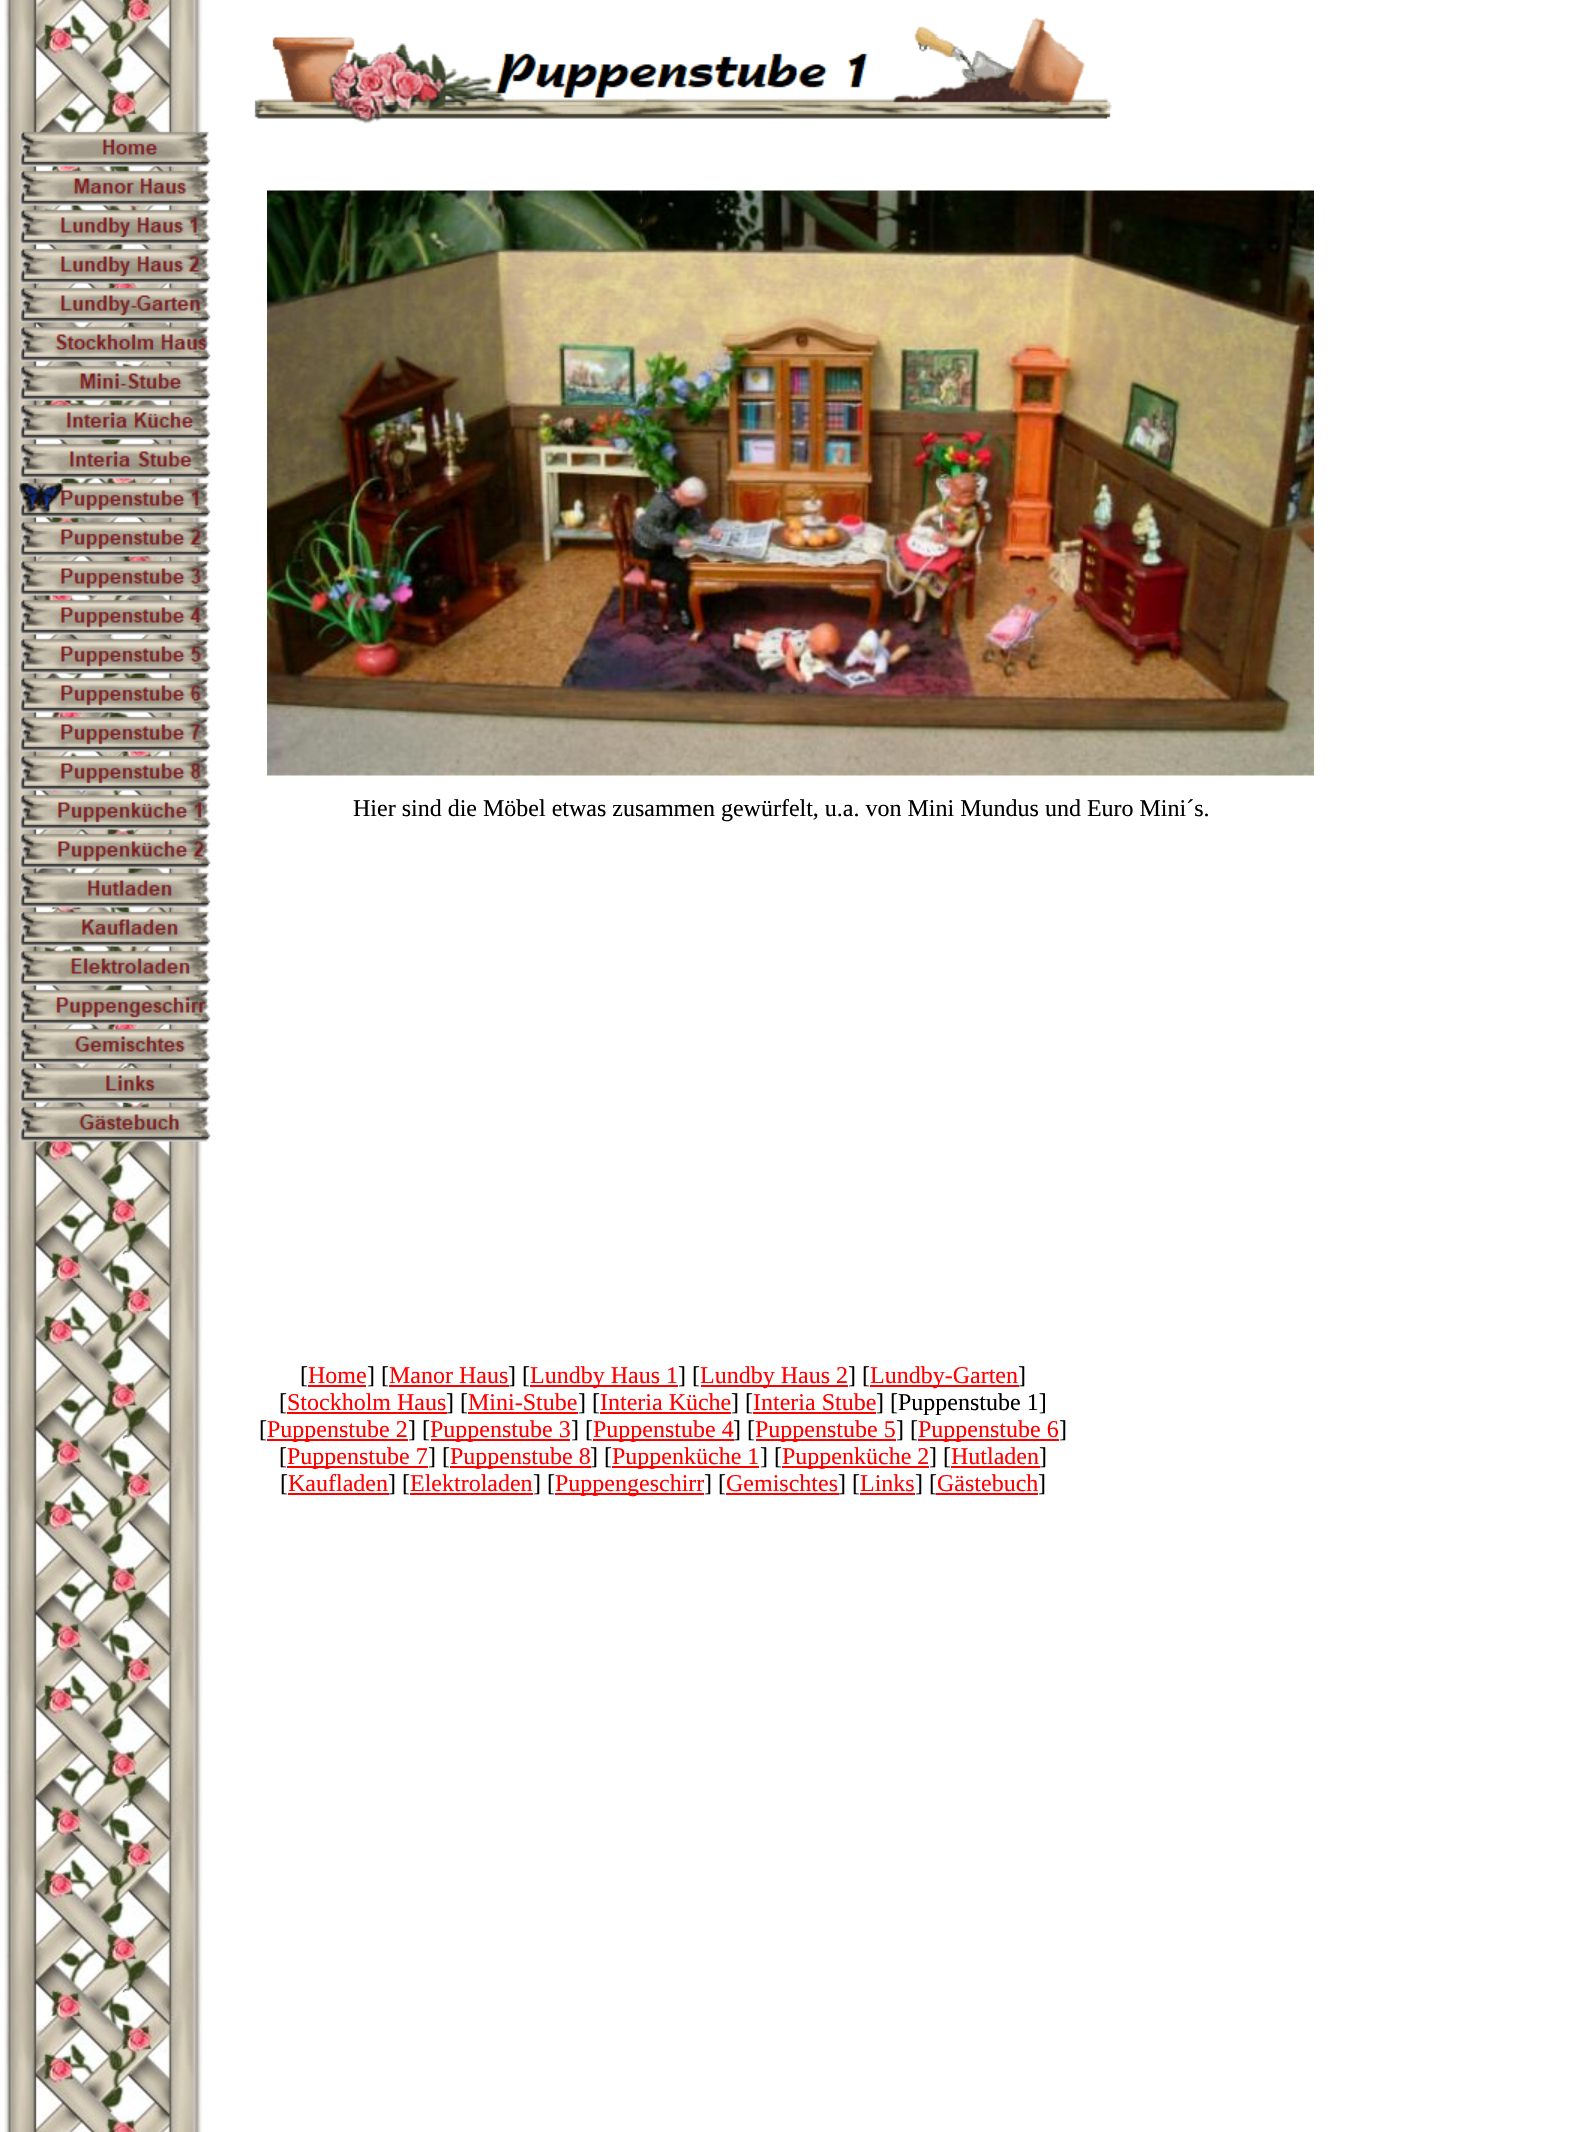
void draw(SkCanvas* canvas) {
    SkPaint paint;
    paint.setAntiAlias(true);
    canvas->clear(0xFFFFFFFF);
    canvas->drawImageRect(SkImages::DeferredFromEncodedData(SkData::MakeFromFileName("img1.png")), SkRect::MakeXYWH(4, 0, 199, 2132), SkSamplingOptions());
    canvas->drawImageRect(SkImages::DeferredFromEncodedData(SkData::MakeFromFileName("img2.png")), SkRect::MakeXYWH(19, 131, 192, 36), SkSamplingOptions());
    canvas->drawImageRect(SkImages::DeferredFromEncodedData(SkData::MakeFromFileName("img3.png")), SkRect::MakeXYWH(19, 170, 192, 36), SkSamplingOptions());
    canvas->drawImageRect(SkImages::DeferredFromEncodedData(SkData::MakeFromFileName("img4.png")), SkRect::MakeXYWH(19, 209, 192, 36), SkSamplingOptions());
    canvas->drawImageRect(SkImages::DeferredFromEncodedData(SkData::MakeFromFileName("img5.png")), SkRect::MakeXYWH(19, 248, 192, 36), SkSamplingOptions());
    canvas->drawImageRect(SkImages::DeferredFromEncodedData(SkData::MakeFromFileName("img6.png")), SkRect::MakeXYWH(19, 287, 192, 36), SkSamplingOptions());
    canvas->drawImageRect(SkImages::DeferredFromEncodedData(SkData::MakeFromFileName("img7.png")), SkRect::MakeXYWH(19, 326, 192, 36), SkSamplingOptions());
    canvas->drawImageRect(SkImages::DeferredFromEncodedData(SkData::MakeFromFileName("img8.png")), SkRect::MakeXYWH(19, 365, 192, 36), SkSamplingOptions());
    canvas->drawImageRect(SkImages::DeferredFromEncodedData(SkData::MakeFromFileName("img9.png")), SkRect::MakeXYWH(19, 404, 192, 36), SkSamplingOptions());
    canvas->drawImageRect(SkImages::DeferredFromEncodedData(SkData::MakeFromFileName("img10.png")), SkRect::MakeXYWH(19, 443, 192, 36), SkSamplingOptions());
    canvas->drawImageRect(SkImages::DeferredFromEncodedData(SkData::MakeFromFileName("img11.png")), SkRect::MakeXYWH(18, 481, 193, 37), SkSamplingOptions());
    canvas->drawImageRect(SkImages::DeferredFromEncodedData(SkData::MakeFromFileName("img12.png")), SkRect::MakeXYWH(19, 521, 192, 36), SkSamplingOptions());
    canvas->drawImageRect(SkImages::DeferredFromEncodedData(SkData::MakeFromFileName("img13.png")), SkRect::MakeXYWH(19, 560, 192, 36), SkSamplingOptions());
    canvas->drawImageRect(SkImages::DeferredFromEncodedData(SkData::MakeFromFileName("img14.png")), SkRect::MakeXYWH(19, 599, 192, 36), SkSamplingOptions());
    canvas->drawImageRect(SkImages::DeferredFromEncodedData(SkData::MakeFromFileName("img15.png")), SkRect::MakeXYWH(19, 638, 192, 36), SkSamplingOptions());
    canvas->drawImageRect(SkImages::DeferredFromEncodedData(SkData::MakeFromFileName("img16.png")), SkRect::MakeXYWH(19, 677, 192, 36), SkSamplingOptions());
    canvas->drawImageRect(SkImages::DeferredFromEncodedData(SkData::MakeFromFileName("img17.png")), SkRect::MakeXYWH(19, 716, 192, 36), SkSamplingOptions());
    canvas->drawImageRect(SkImages::DeferredFromEncodedData(SkData::MakeFromFileName("img18.png")), SkRect::MakeXYWH(19, 755, 192, 36), SkSamplingOptions());
    canvas->drawImageRect(SkImages::DeferredFromEncodedData(SkData::MakeFromFileName("img19.png")), SkRect::MakeXYWH(19, 794, 192, 36), SkSamplingOptions());
    canvas->drawImageRect(SkImages::DeferredFromEncodedData(SkData::MakeFromFileName("img20.png")), SkRect::MakeXYWH(19, 833, 192, 36), SkSamplingOptions());
    canvas->drawImageRect(SkImages::DeferredFromEncodedData(SkData::MakeFromFileName("img21.png")), SkRect::MakeXYWH(19, 872, 192, 36), SkSamplingOptions());
    canvas->drawImageRect(SkImages::DeferredFromEncodedData(SkData::MakeFromFileName("img22.png")), SkRect::MakeXYWH(19, 911, 192, 36), SkSamplingOptions());
    canvas->drawImageRect(SkImages::DeferredFromEncodedData(SkData::MakeFromFileName("img23.png")), SkRect::MakeXYWH(19, 950, 192, 36), SkSamplingOptions());
    canvas->drawImageRect(SkImages::DeferredFromEncodedData(SkData::MakeFromFileName("img24.png")), SkRect::MakeXYWH(19, 989, 192, 36), SkSamplingOptions());
    canvas->drawImageRect(SkImages::DeferredFromEncodedData(SkData::MakeFromFileName("img25.png")), SkRect::MakeXYWH(19, 1028, 192, 36), SkSamplingOptions());
    canvas->drawImageRect(SkImages::DeferredFromEncodedData(SkData::MakeFromFileName("img26.png")), SkRect::MakeXYWH(19, 1067, 192, 36), SkSamplingOptions());
    canvas->drawImageRect(SkImages::DeferredFromEncodedData(SkData::MakeFromFileName("img27.png")), SkRect::MakeXYWH(19, 1106, 192, 36), SkSamplingOptions());
    canvas->drawImageRect(SkImages::DeferredFromEncodedData(SkData::MakeFromFileName("img28.png")), SkRect::MakeXYWH(254, 17, 858, 107), SkSamplingOptions());
    canvas->drawImageRect(SkImages::DeferredFromEncodedData(SkData::MakeFromFileName("img29.png")), SkRect::MakeXYWH(267, 190, 1047, 586), SkSamplingOptions());
    SkFont font1(fontMgr->matchFamilyStyle("Liberation Serif", SkFontStyle::Normal()), 24);
    font1.setSubpixel(true);
    paint.setColor(0xFF000000);
    canvas->drawString("Hier sind die Möbel etwas zusammen gewürfelt, u.a. von Mini Mundus und Euro Mini´s.", 353, 816, font1, paint);
    canvas->drawString("[", 300, 1383, font1, paint);
    paint.setColor(0xFFFF0000);
    canvas->drawString("Home", 308, 1383, font1, paint);
    canvas->drawRect(SkRect::MakeXYWH(308, 1385, 58, 2), paint);
    paint.setColor(0xFF000000);
    canvas->drawString("] [", 367, 1383, font1, paint);
    paint.setColor(0xFFFF0000);
    canvas->drawString("Manor Haus", 389, 1383, font1, paint);
    canvas->drawRect(SkRect::MakeXYWH(389, 1385, 120, 2), paint);
    paint.setColor(0xFF000000);
    canvas->drawString("] [", 508, 1383, font1, paint);
    paint.setColor(0xFFFF0000);
    canvas->drawRect(SkRect::MakeXYWH(530, 1385, 148, 2), paint);
    canvas->drawString("Lundby Haus 1", 530, 1383, font1, paint);
    paint.setColor(0xFF000000);
    canvas->drawString("] [", 678, 1383, font1, paint);
    paint.setColor(0xFFFF0000);
    canvas->drawRect(SkRect::MakeXYWH(701, 1385, 147, 2), paint);
    canvas->drawString("Lundby Haus 2", 700, 1383, font1, paint);
    paint.setColor(0xFF000000);
    canvas->drawString("] [", 848, 1383, font1, paint);
    paint.setColor(0xFFFF0000);
    canvas->drawRect(SkRect::MakeXYWH(870, 1385, 149, 2), paint);
    canvas->drawString("Lundby-Garten", 870, 1383, font1, paint);
    paint.setColor(0xFF000000);
    canvas->drawString("]", 1018, 1383, font1, paint);
    canvas->drawString("[", 279, 1410, font1, paint);
    paint.setColor(0xFFFF0000);
    canvas->drawString("Stockholm Haus", 287, 1410, font1, paint);
    canvas->drawRect(SkRect::MakeXYWH(287, 1412, 160, 2), paint);
    paint.setColor(0xFF000000);
    canvas->drawString("] [", 446, 1410, font1, paint);
    paint.setColor(0xFFFF0000);
    canvas->drawString("Mini-Stube", 468, 1410, font1, paint);
    canvas->drawRect(SkRect::MakeXYWH(468, 1412, 110, 2), paint);
    paint.setColor(0xFF000000);
    canvas->drawString("] [", 578, 1410, font1, paint);
    paint.setColor(0xFFFF0000);
    canvas->drawString("Interia Küche", 600, 1410, font1, paint);
    canvas->drawRect(SkRect::MakeXYWH(600, 1412, 131, 2), paint);
    paint.setColor(0xFF000000);
    canvas->drawString("] [", 731, 1410, font1, paint);
    paint.setColor(0xFFFF0000);
    canvas->drawString("Interia Stube", 753, 1410, font1, paint);
    canvas->drawRect(SkRect::MakeXYWH(753, 1412, 123, 2), paint);
    paint.setColor(0xFF000000);
    canvas->drawString("] [Puppenstube 1]", 876, 1410, font1, paint);
    canvas->drawString("[", 259, 1437, font1, paint);
    paint.setColor(0xFFFF0000);
    canvas->drawRect(SkRect::MakeXYWH(267, 1439, 141, 2), paint);
    canvas->drawString("Puppenstube 2", 267, 1437, font1, paint);
    paint.setColor(0xFF000000);
    canvas->drawString("] [", 408, 1437, font1, paint);
    paint.setColor(0xFFFF0000);
    canvas->drawRect(SkRect::MakeXYWH(431, 1439, 139, 2), paint);
    canvas->drawString("Puppenstube 3", 430, 1437, font1, paint);
    paint.setColor(0xFF000000);
    canvas->drawString("] [", 571, 1437, font1, paint);
    paint.setColor(0xFFFF0000);
    canvas->drawRect(SkRect::MakeXYWH(593, 1439, 141, 2), paint);
    canvas->drawString("Puppenstube 4", 593, 1437, font1, paint);
    paint.setColor(0xFF000000);
    canvas->drawString("] [", 733, 1437, font1, paint);
    paint.setColor(0xFFFF0000);
    canvas->drawRect(SkRect::MakeXYWH(756, 1439, 140, 2), paint);
    canvas->drawString("Puppenstube 5", 755, 1437, font1, paint);
    paint.setColor(0xFF000000);
    canvas->drawString("] [", 896, 1437, font1, paint);
    paint.setColor(0xFFFF0000);
    canvas->drawRect(SkRect::MakeXYWH(918, 1439, 141, 2), paint);
    canvas->drawString("Puppenstube 6", 918, 1437, font1, paint);
    paint.setColor(0xFF000000);
    canvas->drawString("]", 1059, 1437, font1, paint);
    canvas->drawString("[", 279, 1464, font1, paint);
    paint.setColor(0xFFFF0000);
    canvas->drawRect(SkRect::MakeXYWH(287, 1466, 141, 2), paint);
    canvas->drawString("Puppenstube 7", 287, 1464, font1, paint);
    paint.setColor(0xFF000000);
    canvas->drawString("] [", 428, 1464, font1, paint);
    paint.setColor(0xFFFF0000);
    canvas->drawRect(SkRect::MakeXYWH(450, 1466, 141, 2), paint);
    canvas->drawString("Puppenstube 8", 450, 1464, font1, paint);
    paint.setColor(0xFF000000);
    canvas->drawString("] [", 590, 1464, font1, paint);
    paint.setColor(0xFFFF0000);
    canvas->drawRect(SkRect::MakeXYWH(612, 1466, 147, 2), paint);
    canvas->drawString("Puppenküche 1", 612, 1464, font1, paint);
    paint.setColor(0xFF000000);
    canvas->drawString("] [", 760, 1464, font1, paint);
    paint.setColor(0xFFFF0000);
    canvas->drawRect(SkRect::MakeXYWH(782, 1466, 147, 2), paint);
    canvas->drawString("Puppenküche 2", 782, 1464, font1, paint);
    paint.setColor(0xFF000000);
    canvas->drawString("] [", 929, 1464, font1, paint);
    paint.setColor(0xFFFF0000);
    canvas->drawString("Hutladen", 951, 1464, font1, paint);
    canvas->drawRect(SkRect::MakeXYWH(951, 1466, 89, 2), paint);
    paint.setColor(0xFF000000);
    canvas->drawString("]", 1039, 1464, font1, paint);
    canvas->drawString("[", 280, 1491, font1, paint);
    paint.setColor(0xFFFF0000);
    canvas->drawString("Kaufladen", 288, 1491, font1, paint);
    canvas->drawRect(SkRect::MakeXYWH(288, 1493, 101, 2), paint);
    paint.setColor(0xFF000000);
    canvas->drawString("] [", 388, 1491, font1, paint);
    paint.setColor(0xFFFF0000);
    canvas->drawString("Elektroladen", 410, 1491, font1, paint);
    canvas->drawRect(SkRect::MakeXYWH(410, 1493, 123, 2), paint);
    paint.setColor(0xFF000000);
    canvas->drawString("] [", 533, 1491, font1, paint);
    paint.setColor(0xFFFF0000);
    canvas->drawRect(SkRect::MakeXYWH(555, 1493, 149, 2), paint);
    canvas->drawString("Puppengeschirr", 555, 1491, font1, paint);
    paint.setColor(0xFF000000);
    canvas->drawString("] [", 704, 1491, font1, paint);
    paint.setColor(0xFFFF0000);
    canvas->drawString("Gemischtes", 726, 1491, font1, paint);
    canvas->drawRect(SkRect::MakeXYWH(726, 1493, 113, 2), paint);
    paint.setColor(0xFF000000);
    canvas->drawString("] [", 838, 1491, font1, paint);
    paint.setColor(0xFFFF0000);
    canvas->drawString("Links", 860, 1491, font1, paint);
    canvas->drawRect(SkRect::MakeXYWH(860, 1493, 55, 2), paint);
    paint.setColor(0xFF000000);
    canvas->drawString("] [", 915, 1491, font1, paint);
    paint.setColor(0xFFFF0000);
    canvas->drawString("Gästebuch", 937, 1491, font1, paint);
    canvas->drawRect(SkRect::MakeXYWH(936, 1493, 102, 2), paint);
    paint.setColor(0xFF000000);
    canvas->drawString("]", 1038, 1491, font1, paint);
}
